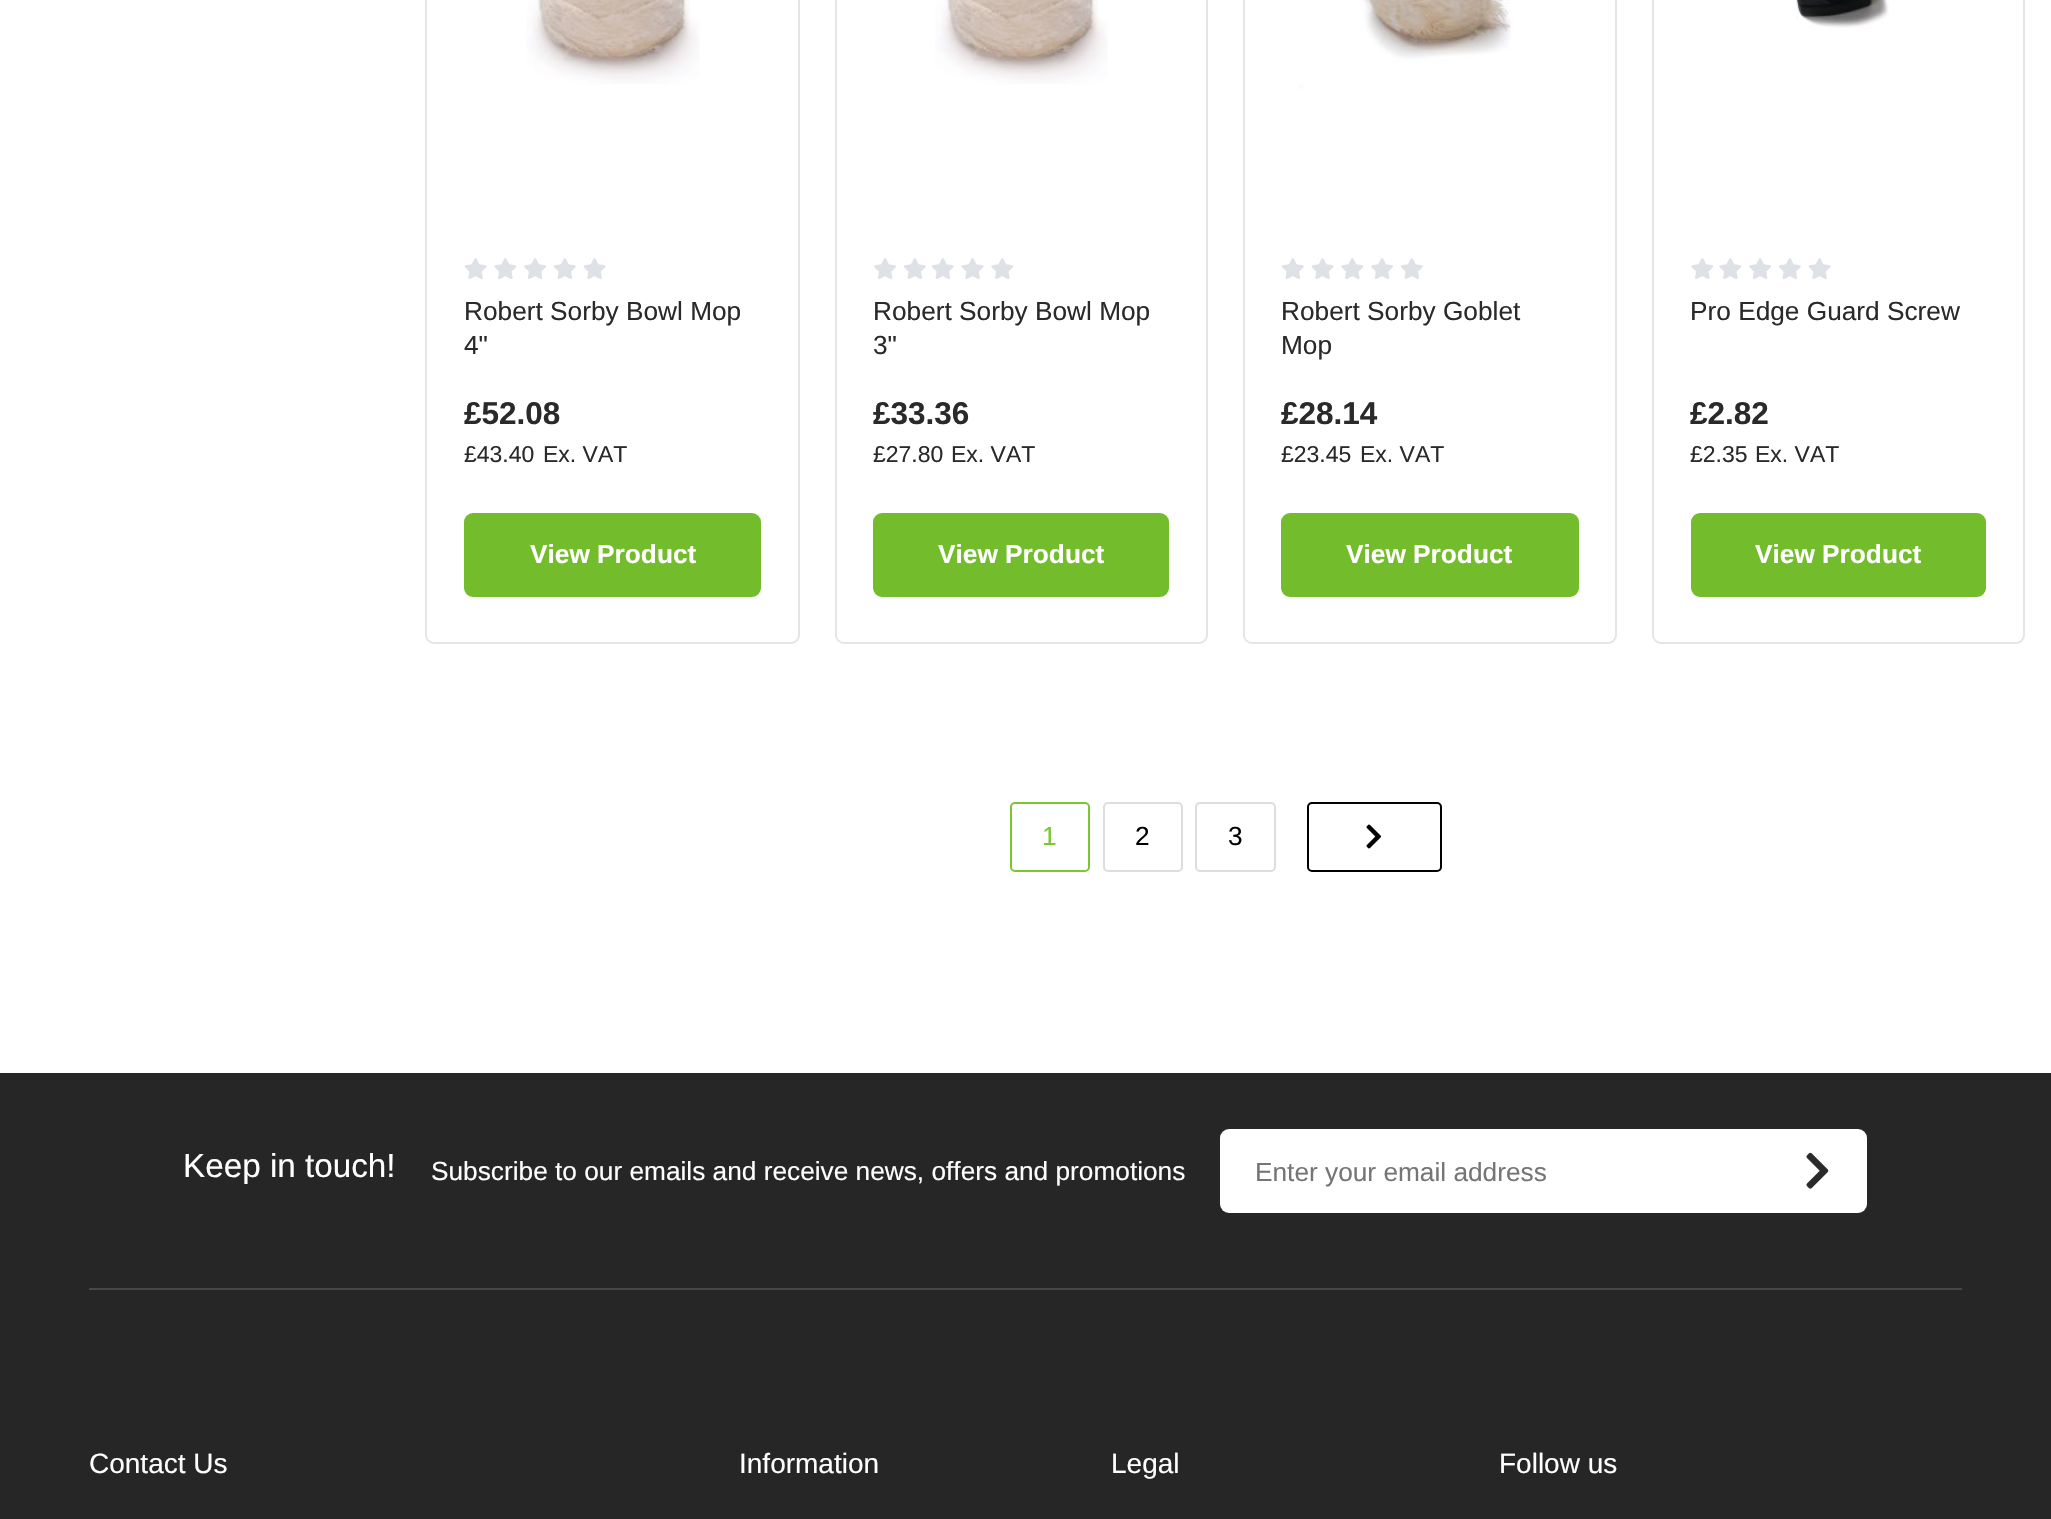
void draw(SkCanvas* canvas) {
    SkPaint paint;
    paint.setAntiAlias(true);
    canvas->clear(0xFFFFFFFF);
    paint.setStyle(SkPaint::kStroke_Style);
    paint.setStrokeWidth(2);
    paint.setColor(0xFFE5E5E5);
    canvas->drawRoundRect(SkRect::MakeXYWH(426, -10, 373, 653), 8, 8, paint);
    canvas->drawImageRect(SkImages::DeferredFromEncodedData(SkData::MakeFromFileName("img1.png")), SkRect::MakeXYWH(526, 0, 174, 84), SkSamplingOptions());
    canvas->drawImageRect(SkImages::DeferredFromEncodedData(SkData::MakeFromFileName("img2.png")), SkRect::MakeXYWH(464, 258, 23, 21), SkSamplingOptions());
    canvas->drawImageRect(SkImages::DeferredFromEncodedData(SkData::MakeFromFileName("img3.png")), SkRect::MakeXYWH(494, 258, 23, 21), SkSamplingOptions());
    canvas->drawImageRect(SkImages::DeferredFromEncodedData(SkData::MakeFromFileName("img4.png")), SkRect::MakeXYWH(524, 258, 22, 21), SkSamplingOptions());
    canvas->drawImageRect(SkImages::DeferredFromEncodedData(SkData::MakeFromFileName("img5.png")), SkRect::MakeXYWH(554, 258, 22, 21), SkSamplingOptions());
    canvas->drawImageRect(SkImages::DeferredFromEncodedData(SkData::MakeFromFileName("img2.png")), SkRect::MakeXYWH(583, 258, 23, 21), SkSamplingOptions());
    SkFont font1(fontMgr->matchFamilyStyle("Liberation Sans", SkFontStyle::Normal()), 26.25f);
    font1.setSubpixel(true);
    paint.setStyle(SkPaint::kFill_Style);
    paint.setColor(0xFF2A2A2A);
    canvas->drawString("Robert Sorby Bowl Mop", 464, 320, font1, paint);
    canvas->drawString("4\"", 464, 354, font1, paint);
    SkFont font2(fontMgr->matchFamilyStyle("Liberation Sans", SkFontStyle::Bold()), 31.5f);
    font2.setSubpixel(true);
    canvas->drawString("£52.08", 464, 424, font2, paint);
    SkFont font3(fontMgr->matchFamilyStyle("Liberation Sans", SkFontStyle::Normal()), 23);
    font3.setSubpixel(true);
    canvas->drawString("£43.40", 464, 462, font3, paint);
    canvas->drawString("Ex. VAT", 543, 462, font3, paint);
    paint.setColor(0xFF73BC2C);
    canvas->drawRoundRect(SkRect::MakeXYWH(465, 514, 295, 82), 8, 8, paint);
    paint.setStyle(SkPaint::kStroke_Style);
    canvas->drawRoundRect(SkRect::MakeXYWH(465, 514, 295, 82), 8, 8, paint);
    SkFont font4(fontMgr->matchFamilyStyle("Liberation Sans", SkFontStyle::Bold()), 26.25f);
    font4.setSubpixel(true);
    paint.setStyle(SkPaint::kFill_Style);
    paint.setColor(0xFFFFFFFF);
    canvas->drawString("View Product", 530, 563, font4, paint);
    paint.setStyle(SkPaint::kStroke_Style);
    paint.setColor(0xFFE5E5E5);
    canvas->drawRoundRect(SkRect::MakeXYWH(836, -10, 371, 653), 8, 8, paint);
    canvas->drawImageRect(SkImages::DeferredFromEncodedData(SkData::MakeFromFileName("img6.png")), SkRect::MakeXYWH(935, 0, 173, 84), SkSamplingOptions());
    canvas->drawImageRect(SkImages::DeferredFromEncodedData(SkData::MakeFromFileName("img4.png")), SkRect::MakeXYWH(874, 258, 22, 21), SkSamplingOptions());
    canvas->drawImageRect(SkImages::DeferredFromEncodedData(SkData::MakeFromFileName("img5.png")), SkRect::MakeXYWH(904, 258, 22, 21), SkSamplingOptions());
    canvas->drawImageRect(SkImages::DeferredFromEncodedData(SkData::MakeFromFileName("img5.png")), SkRect::MakeXYWH(932, 258, 22, 21), SkSamplingOptions());
    canvas->drawImageRect(SkImages::DeferredFromEncodedData(SkData::MakeFromFileName("img2.png")), SkRect::MakeXYWH(961, 258, 23, 21), SkSamplingOptions());
    canvas->drawImageRect(SkImages::DeferredFromEncodedData(SkData::MakeFromFileName("img3.png")), SkRect::MakeXYWH(991, 258, 23, 21), SkSamplingOptions());
    paint.setStyle(SkPaint::kFill_Style);
    paint.setColor(0xFF2A2A2A);
    canvas->drawString("Robert Sorby Bowl Mop", 873, 320, font1, paint);
    canvas->drawString("3\"", 873, 354, font1, paint);
    canvas->drawString("£33.36", 873, 424, font2, paint);
    canvas->drawString("£27.80", 873, 462, font3, paint);
    canvas->drawString("Ex. VAT", 951, 462, font3, paint);
    paint.setColor(0xFF73BC2C);
    canvas->drawRoundRect(SkRect::MakeXYWH(874, 514, 294, 82), 8, 8, paint);
    paint.setStyle(SkPaint::kStroke_Style);
    canvas->drawRoundRect(SkRect::MakeXYWH(874, 514, 294, 82), 8, 8, paint);
    paint.setStyle(SkPaint::kFill_Style);
    paint.setColor(0xFFFFFFFF);
    canvas->drawString("View Product", 938, 563, font4, paint);
    paint.setStyle(SkPaint::kStroke_Style);
    paint.setColor(0xFFE5E5E5);
    canvas->drawRoundRect(SkRect::MakeXYWH(1244, -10, 372, 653), 8, 8, paint);
    canvas->drawImageRect(SkImages::DeferredFromEncodedData(SkData::MakeFromFileName("img7.png")), SkRect::MakeXYWH(1299, 0, 212, 89), SkSamplingOptions());
    canvas->drawImageRect(SkImages::DeferredFromEncodedData(SkData::MakeFromFileName("img5.png")), SkRect::MakeXYWH(1282, 258, 22, 21), SkSamplingOptions());
    canvas->drawImageRect(SkImages::DeferredFromEncodedData(SkData::MakeFromFileName("img2.png")), SkRect::MakeXYWH(1311, 258, 23, 21), SkSamplingOptions());
    canvas->drawImageRect(SkImages::DeferredFromEncodedData(SkData::MakeFromFileName("img3.png")), SkRect::MakeXYWH(1341, 258, 23, 21), SkSamplingOptions());
    canvas->drawImageRect(SkImages::DeferredFromEncodedData(SkData::MakeFromFileName("img4.png")), SkRect::MakeXYWH(1371, 258, 22, 21), SkSamplingOptions());
    canvas->drawImageRect(SkImages::DeferredFromEncodedData(SkData::MakeFromFileName("img5.png")), SkRect::MakeXYWH(1401, 258, 22, 21), SkSamplingOptions());
    paint.setStyle(SkPaint::kFill_Style);
    paint.setColor(0xFF2A2A2A);
    canvas->drawString("Robert Sorby Goblet", 1281, 320, font1, paint);
    canvas->drawString("Mop", 1281, 354, font1, paint);
    canvas->drawString("£28.14", 1281, 424, font2, paint);
    canvas->drawString("£23.45", 1281, 462, font3, paint);
    canvas->drawString("Ex. VAT", 1360, 462, font3, paint);
    paint.setColor(0xFF73BC2C);
    canvas->drawRoundRect(SkRect::MakeXYWH(1282, 514, 296, 82), 8, 8, paint);
    paint.setStyle(SkPaint::kStroke_Style);
    canvas->drawRoundRect(SkRect::MakeXYWH(1282, 514, 296, 82), 8, 8, paint);
    paint.setStyle(SkPaint::kFill_Style);
    paint.setColor(0xFFFFFFFF);
    canvas->drawString("View Product", 1346, 563, font4, paint);
    paint.setStyle(SkPaint::kStroke_Style);
    paint.setColor(0xFFE5E5E5);
    canvas->drawRoundRect(SkRect::MakeXYWH(1653, -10, 371, 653), 8, 8, paint);
    canvas->drawImageRect(SkImages::DeferredFromEncodedData(SkData::MakeFromFileName("img8.png")), SkRect::MakeXYWH(1796, 0, 93, 28), SkSamplingOptions());
    canvas->drawImageRect(SkImages::DeferredFromEncodedData(SkData::MakeFromFileName("img3.png")), SkRect::MakeXYWH(1691, 258, 23, 21), SkSamplingOptions());
    canvas->drawImageRect(SkImages::DeferredFromEncodedData(SkData::MakeFromFileName("img3.png")), SkRect::MakeXYWH(1719, 258, 23, 21), SkSamplingOptions());
    canvas->drawImageRect(SkImages::DeferredFromEncodedData(SkData::MakeFromFileName("img4.png")), SkRect::MakeXYWH(1749, 258, 22, 21), SkSamplingOptions());
    canvas->drawImageRect(SkImages::DeferredFromEncodedData(SkData::MakeFromFileName("img5.png")), SkRect::MakeXYWH(1779, 258, 22, 21), SkSamplingOptions());
    canvas->drawImageRect(SkImages::DeferredFromEncodedData(SkData::MakeFromFileName("img2.png")), SkRect::MakeXYWH(1808, 258, 23, 21), SkSamplingOptions());
    paint.setStyle(SkPaint::kFill_Style);
    paint.setColor(0xFF2A2A2A);
    canvas->drawString("Pro Edge Guard Screw", 1690, 320, font1, paint);
    canvas->drawString("£2.82", 1690, 424, font2, paint);
    canvas->drawString("£2.35", 1690, 462, font3, paint);
    canvas->drawString("Ex. VAT", 1755, 462, font3, paint);
    paint.setColor(0xFF73BC2C);
    canvas->drawRoundRect(SkRect::MakeXYWH(1692, 514, 293, 82), 8, 8, paint);
    paint.setStyle(SkPaint::kStroke_Style);
    canvas->drawRoundRect(SkRect::MakeXYWH(1692, 514, 293, 82), 8, 8, paint);
    paint.setStyle(SkPaint::kFill_Style);
    paint.setColor(0xFFFFFFFF);
    canvas->drawString("View Product", 1755, 563, font4, paint);
    paint.setStyle(SkPaint::kStroke_Style);
    paint.setColor(0xFF7CC634);
    canvas->drawRoundRect(SkRect::MakeXYWH(1011, 803, 78, 68), 4, 4, paint);
    paint.setStyle(SkPaint::kFill_Style);
    canvas->drawString("1", 1042, 845, font1, paint);
    paint.setStyle(SkPaint::kStroke_Style);
    paint.setColor(0xFFDDDDDD);
    canvas->drawRoundRect(SkRect::MakeXYWH(1104, 803, 78, 68), 4, 4, paint);
    paint.setStyle(SkPaint::kFill_Style);
    paint.setColor(0xFF000000);
    canvas->drawString("2", 1135, 845, font1, paint);
    paint.setStyle(SkPaint::kStroke_Style);
    paint.setColor(0xFFDDDDDD);
    canvas->drawRoundRect(SkRect::MakeXYWH(1196, 803, 79, 68), 4, 4, paint);
    paint.setStyle(SkPaint::kFill_Style);
    paint.setColor(0xFF000000);
    canvas->drawString("3", 1228, 845, font1, paint);
    paint.setStyle(SkPaint::kStroke_Style);
    canvas->drawRoundRect(SkRect::MakeXYWH(1308, 803, 133, 68), 4, 4, paint);
    canvas->drawImageRect(SkImages::DeferredFromEncodedData(SkData::MakeFromFileName("img9.png")), SkRect::MakeXYWH(1366, 824, 15, 25), SkSamplingOptions());
    paint.setStyle(SkPaint::kFill_Style);
    paint.setColor(0xFF262626);
    canvas->drawRect(SkRect::MakeXYWH(0, 1073, 2051, 446), paint);
    paint.setColor(0xFF454848);
    canvas->drawRect(SkRect::MakeXYWH(89, 1288, 1873, 2), paint);
    SkFont font5(fontMgr->matchFamilyStyle("Liberation Sans", SkFontStyle::Normal()), 33.25f);
    font5.setSubpixel(true);
    paint.setColor(0xFFFFFFFF);
    canvas->drawString("Keep in touch!", 183, 1177, font5, paint);
    canvas->drawString("Subscribe to our emails and receive news, offers and promotions", 431, 1180, font1, paint);
    canvas->drawRoundRect(SkRect::MakeXYWH(1220, 1129, 647, 84), 9, 9, paint);
    paint.setColor(0xFF757575);
    canvas->drawString("Enter your email address", 1255, 1181, font1, paint);
    canvas->drawImageRect(SkImages::DeferredFromEncodedData(SkData::MakeFromFileName("img10.png")), SkRect::MakeXYWH(1806, 1152, 23, 37), SkSamplingOptions());
    SkFont font6(fontMgr->matchFamilyStyle("Liberation Sans", SkFontStyle::Normal()), 28);
    font6.setSubpixel(true);
    paint.setColor(0xFFFFFFFF);
    canvas->drawString("Contact Us", 89, 1473, font6, paint);
    canvas->drawString("Information", 739, 1473, font6, paint);
    canvas->drawString("Legal", 1111, 1473, font6, paint);
    canvas->drawString("Follow us", 1499, 1473, font6, paint);
}
